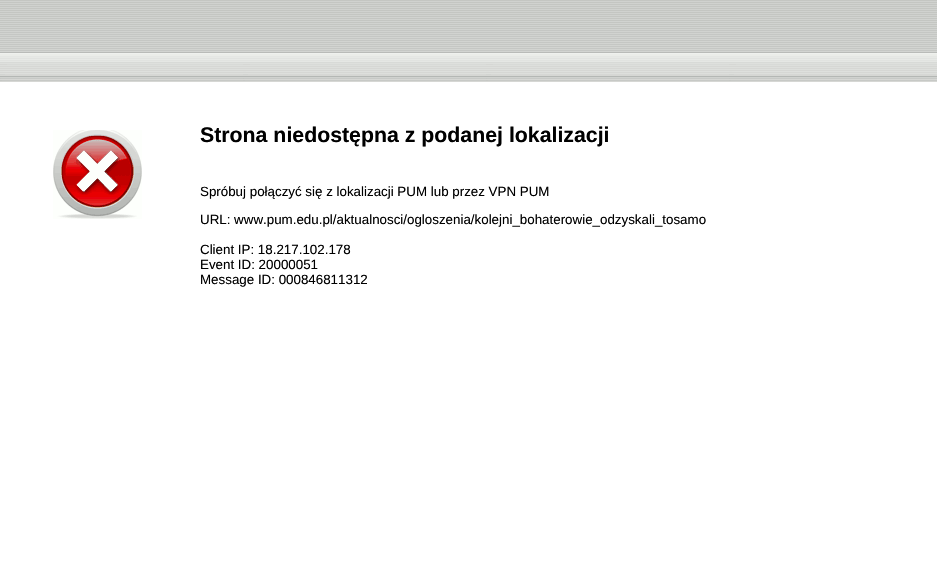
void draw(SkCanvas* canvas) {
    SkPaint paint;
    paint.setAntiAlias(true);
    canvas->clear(0xFFFFFFFF);
    canvas->drawImageRect(SkImages::DeferredFromEncodedData(SkData::MakeFromFileName("img1.png")), SkRect::MakeXYWH(0, 0, 937, 82), SkSamplingOptions());
    canvas->drawImageRect(SkImages::DeferredFromEncodedData(SkData::MakeFromFileName("img2.png")), SkRect::MakeXYWH(53, 130, 89, 89), SkSamplingOptions());
    SkFont font1(fontMgr->matchFamilyStyle("Liberation Sans", SkFontStyle::Bold()), 21.3f);
    font1.setSubpixel(true);
    paint.setColor(0xFF000000);
    canvas->drawString("Strona niedostępna z podanej lokalizacji", 200, 142, font1, paint);
    SkFont font2(fontMgr->matchFamilyStyle("Liberation Sans", SkFontStyle::Normal()), 13.35f);
    font2.setSubpixel(true);
    canvas->drawString("Spróbuj połączyć się z lokalizacji PUM lub przez VPN PUM", 200, 196, font2, paint);
    canvas->drawString("URL: www.pum.edu.pl/aktualnosci/ogloszenia/kolejni_bohaterowie_odzyskali_tosamo", 200, 224, font2, paint);
    canvas->drawString("Client IP: 18.217.102.178", 200, 254, font2, paint);
    canvas->drawString("Event ID: 20000051", 200, 269, font2, paint);
    canvas->drawString("Message ID: 000846811312", 200, 284, font2, paint);
}
